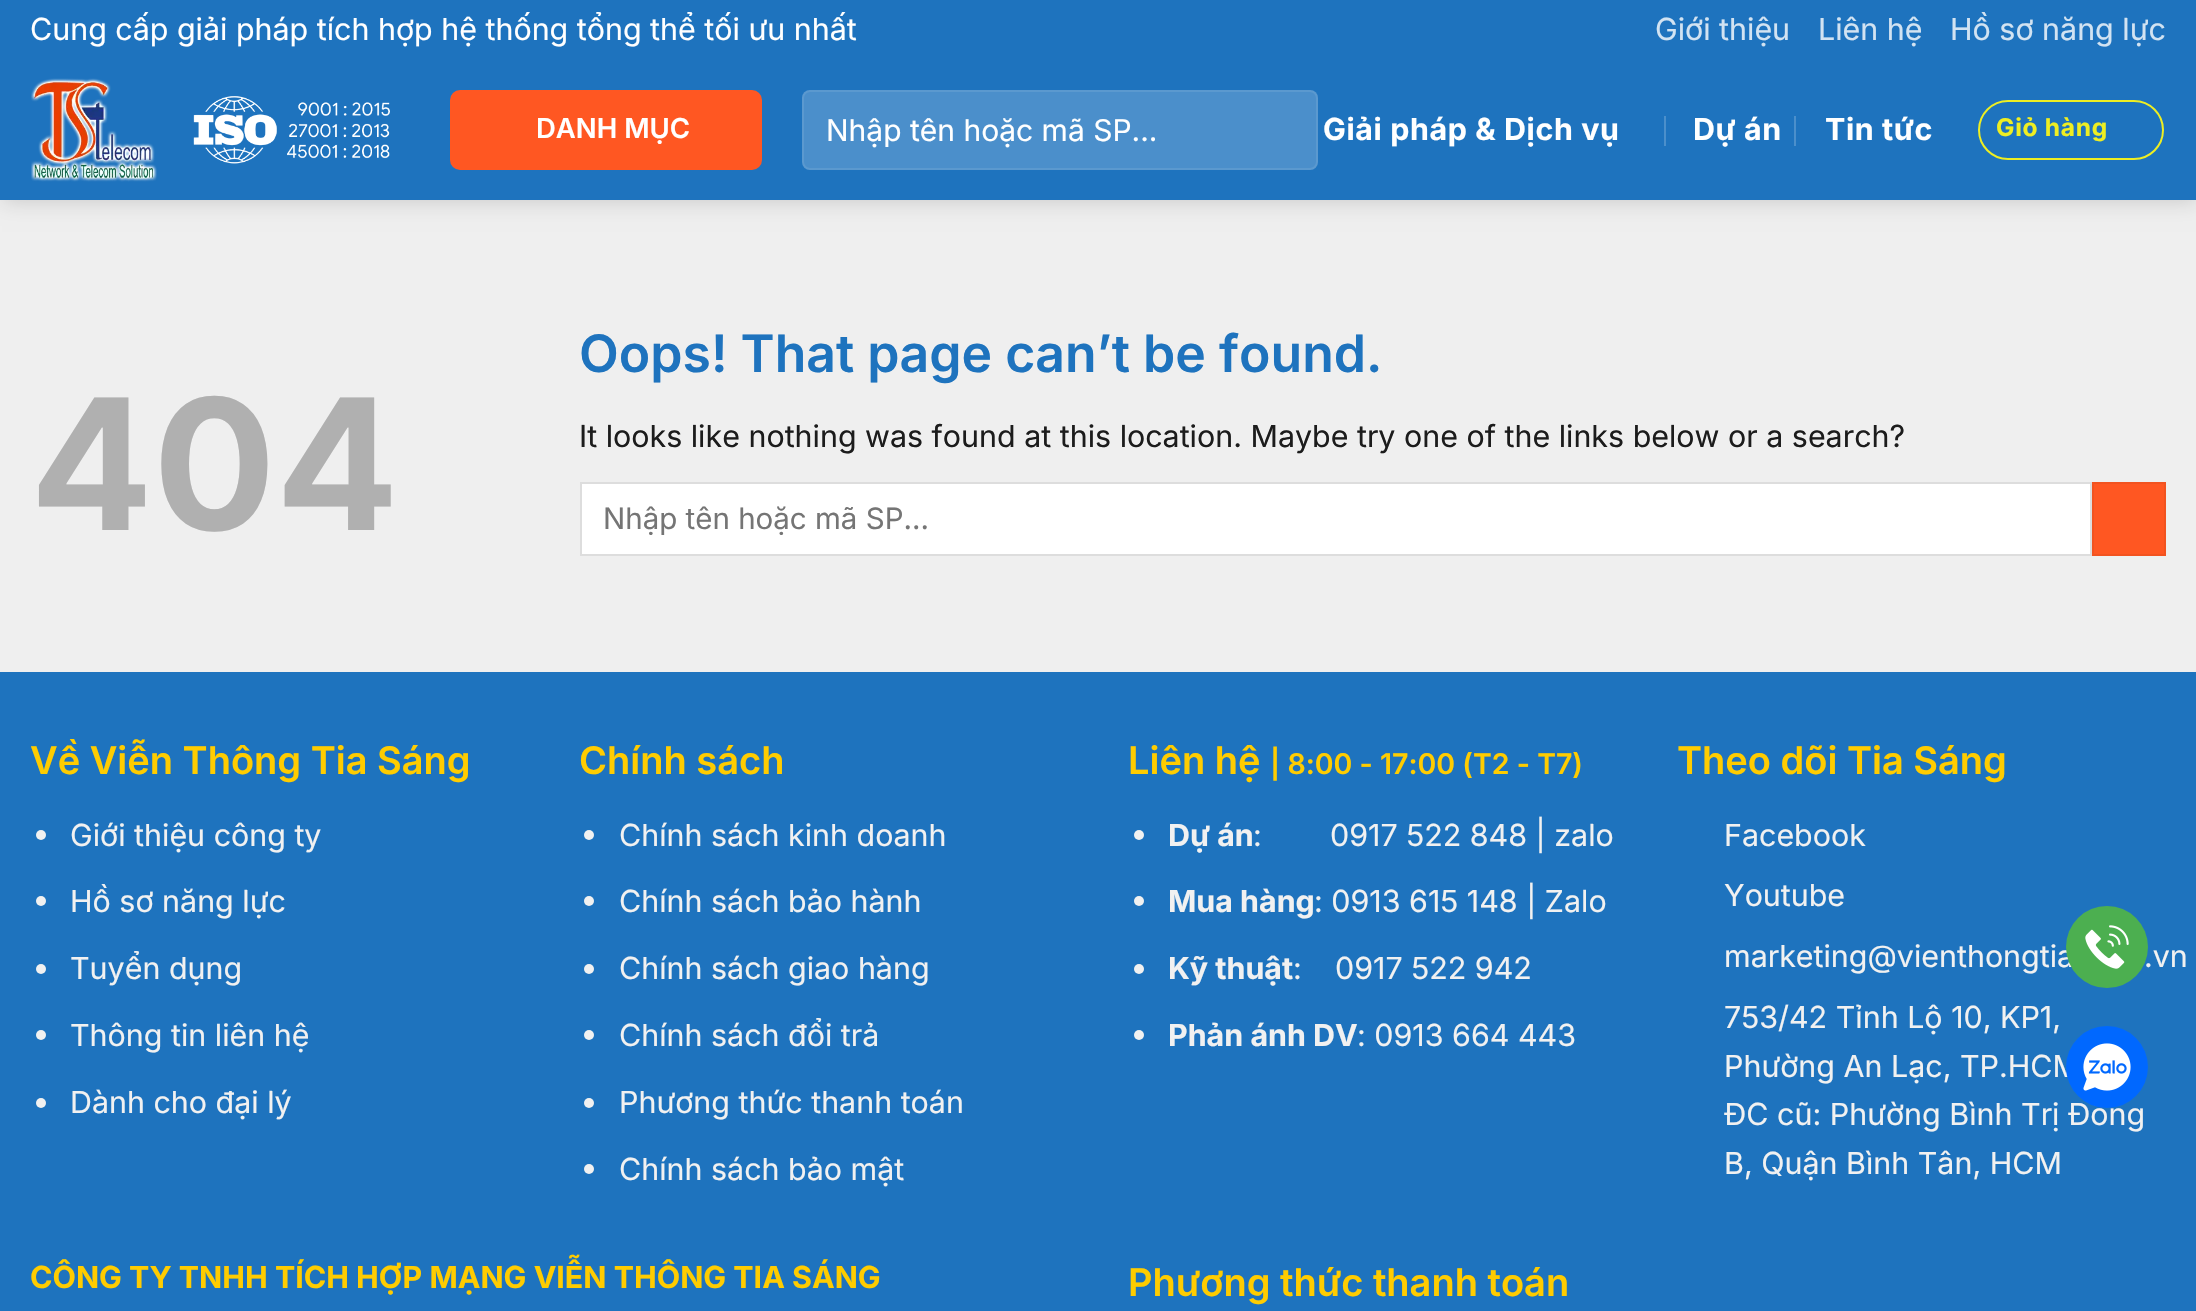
void draw(SkCanvas* canvas) {
    SkPaint paint;
    paint.setAntiAlias(true);
    auto spacedText = [&](const char* s, float x, float y, const SkFont& font, const SkPaint& ink, float letter, float word) {
        std::vector<SkGlyphID> glyphs(font.countText(s, strlen(s), SkTextEncoding::kUTF8));
        std::vector<float> xs(glyphs.size());
        font.textToGlyphs(s, strlen(s), SkTextEncoding::kUTF8, glyphs);
        font.getXPos(glyphs, xs, x);
        float extra = 0;
        for (size_t i = 0; i < glyphs.size(); i++) {
            xs[i] += extra;
            extra += letter + word * (glyphs[i] == font.unicharToGlyph(' '));
        }
        canvas->drawTextBlob(SkTextBlob::MakeFromPosHGlyphs(glyphs, xs, y, font), 0, 0, ink);
    };
    canvas->clear(0xFFEFEFEF);
    paint.setColor(0x26000000);
    paint.setMaskFilter(SkMaskFilter::MakeBlur(kNormal_SkBlurStyle, 10));
    canvas->drawRect(SkRect::MakeXYWH(2, 2, 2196, 200), paint);
    paint.setMaskFilter(nullptr);
    paint.setColor(0xFF1E73BE);
    canvas->drawRect(SkRect::MakeXYWH(0, 0, 2196, 200), paint);
    SkFont font1(fontMgr->matchFamilyStyle("Inter", SkFontStyle::Normal()), 30.4f);
    font1.setSubpixel(true);
    paint.setColor(0xFFFFFFFF);
    canvas->drawString("Cung cấp giải pháp tích hợp hệ thống tổng thể tối ưu nhất", 30, 40, font1, paint);
    paint.setColor(0xFFD2E3F2);
    canvas->drawString("Giới thiệu", 1655, 40, font1, paint);
    canvas->drawString("Liên hệ", 1818, 40, font1, paint);
    canvas->drawString("Hồ sơ năng lực", 1950, 40, font1, paint);
    canvas->drawImageRect(SkImages::DeferredFromEncodedData(SkData::MakeFromFileName("img1.png")), SkRect::MakeXYWH(31, 78, 359, 104), SkSamplingOptions());
    paint.setColor(0xFFFF5722);
    canvas->drawRoundRect(SkRect::MakeXYWH(450, 90, 312, 80), 10, 10, paint);
    SkFont font2(fontMgr->matchFamilyStyle("Inter", SkFontStyle(600, SkFontStyle::kNormal_Width, SkFontStyle::kUpright_Slant)), 27.5f);
    font2.setSubpixel(true);
    paint.setColor(0xFFFFFFFF);
    canvas->drawString("DANH MỤC", 536, 138, font2, paint);
    paint.setColor(0xFF4B8FCB);
    canvas->drawRoundRect(SkRect::MakeXYWH(802, 90, 516, 80), 8, 8, paint);
    paint.setStyle(SkPaint::kStroke_Style);
    paint.setStrokeWidth(2);
    paint.setColor(0x17FFFFFF);
    canvas->drawRoundRect(SkRect::MakeXYWH(803, 91, 514, 78), 7, 7, paint);
    SkFont font3(fontMgr->matchFamilyStyle("Inter", SkFontStyle::Normal()), 30);
    font3.setSubpixel(true);
    paint.setStyle(SkPaint::kFill_Style);
    paint.setColor(0xFFFFFFFF);
    canvas->drawString("Nhập tên hoặc mã SP...", 826, 141, font3, paint);
    SkFont font4(fontMgr->matchFamilyStyle("Inter", SkFontStyle::Bold()), 30.4f);
    font4.setSubpixel(true);
    spacedText("Giải pháp & Dịch vụ", 1323, 140, font4, paint, 0.6f, 0);
    paint.setColor(0xFF4B8FCB);
    canvas->drawRect(SkRect::MakeXYWH(1664, 116, 2, 30), paint);
    paint.setColor(0xFFFFFFFF);
    spacedText("Dự án", 1693, 140, font4, paint, 0.6f, 0);
    paint.setColor(0xFF4B8FCB);
    canvas->drawRect(SkRect::MakeXYWH(1794, 116, 2, 30), paint);
    paint.setColor(0xFFFFFFFF);
    spacedText("Tin tức", 1825, 140, font4, paint, 0.6f, 0);
    paint.setStyle(SkPaint::kStroke_Style);
    paint.setColor(0xFFEEEE22);
    canvas->drawRoundRect(SkRect::MakeXYWH(1979, 101, 184, 58), 29, 29, paint);
    SkFont font5(fontMgr->matchFamilyStyle("Inter", SkFontStyle::Bold()), 24.5f);
    font5.setSubpixel(true);
    paint.setStyle(SkPaint::kFill_Style);
    spacedText("Giỏ hàng", 1996, 136, font5, paint, 0.75f, 0);
    SkFont font6(fontMgr->matchFamilyStyle("Inter", SkFontStyle::Bold()), 182);
    font6.setSubpixel(true);
    paint.setColor(0xFFB0B0B0);
    canvas->drawString("404", 30, 530, font6, paint);
    SkFont font7(fontMgr->matchFamilyStyle("Inter", SkFontStyle(600, SkFontStyle::kNormal_Width, SkFontStyle::kUpright_Slant)), 51.7f);
    font7.setSubpixel(true);
    paint.setColor(0xFF1E73BE);
    canvas->drawString("Oops! That page can’t be found.", 579, 372, font7, paint);
    paint.setColor(0xFF1C1C1C);
    canvas->drawString("It looks like nothing was found at this location. Maybe try one of the links below or a search?", 579, 447, font1, paint);
    paint.setColor(0xFFFFFFFF);
    canvas->drawRect(SkRect::MakeXYWH(581, 483, 1510, 72), paint);
    paint.setStyle(SkPaint::kStroke_Style);
    paint.setColor(0xFFDDDDDD);
    canvas->drawRect(SkRect::MakeXYWH(581, 483, 1510, 72), paint);
    SkFont font8(fontMgr->matchFamilyStyle("Inter", SkFontStyle::Normal()), 29.5f);
    font8.setSubpixel(true);
    paint.setStyle(SkPaint::kFill_Style);
    paint.setColor(0xFF757575);
    canvas->drawString("Nhập tên hoặc mã SP...", 603, 529, font8, paint);
    paint.setColor(0xFFFF5722);
    canvas->drawRect(SkRect::MakeXYWH(2093, 483, 72, 72), paint);
    paint.setStyle(SkPaint::kStroke_Style);
    paint.setColor(0xFFF25320);
    canvas->drawRect(SkRect::MakeXYWH(2093, 483, 72, 72), paint);
    paint.setStyle(SkPaint::kFill_Style);
    paint.setColor(0xFF1E73BE);
    canvas->drawRect(SkRect::MakeXYWH(0, 672, 2196, 639), paint);
    SkFont font9(fontMgr->matchFamilyStyle("Inter", SkFontStyle(600, SkFontStyle::kNormal_Width, SkFontStyle::kUpright_Slant)), 38);
    font9.setSubpixel(true);
    paint.setColor(0xFFFFCC00);
    canvas->drawString("Về Viễn Thông Tia Sáng", 30, 774, font9, paint);
    paint.setColor(0xFFF1F1F1);
    canvas->drawCircle(41, 835, 5, paint);
    canvas->drawString("Giới thiệu công ty", 70, 846, font1, paint);
    canvas->drawCircle(41, 901, 5, paint);
    canvas->drawString("Hồ sơ năng lực", 70, 912, font1, paint);
    canvas->drawCircle(41, 969, 5, paint);
    canvas->drawString("Tuyển dụng", 70, 979, font1, paint);
    canvas->drawCircle(41, 1035, 5, paint);
    canvas->drawString("Thông tin liên hệ", 70, 1046, font1, paint);
    canvas->drawCircle(41, 1103, 5, paint);
    canvas->drawString("Dành cho đại lý", 70, 1113, font1, paint);
    paint.setColor(0xFFFFCC00);
    canvas->drawString("Chính sách", 579, 774, font9, paint);
    paint.setColor(0xFFF1F1F1);
    canvas->drawCircle(589, 835, 5, paint);
    canvas->drawString("Chính sách kinh doanh", 619, 846, font1, paint);
    canvas->drawCircle(589, 901, 5, paint);
    canvas->drawString("Chính sách bảo hành", 619, 912, font1, paint);
    canvas->drawCircle(589, 969, 5, paint);
    canvas->drawString("Chính sách giao hàng", 619, 979, font1, paint);
    canvas->drawCircle(589, 1035, 5, paint);
    canvas->drawString("Chính sách đổi trả", 619, 1046, font1, paint);
    canvas->drawCircle(589, 1103, 5, paint);
    canvas->drawString("Phương thức thanh toán", 619, 1113, font1, paint);
    canvas->drawCircle(589, 1169, 5, paint);
    canvas->drawString("Chính sách bảo mật", 619, 1180, font1, paint);
    paint.setColor(0xFFFFCC00);
    canvas->drawString("Liên hệ", 1128, 774, font9, paint);
    SkFont font10(fontMgr->matchFamilyStyle("Inter", SkFontStyle(600, SkFontStyle::kNormal_Width, SkFontStyle::kUpright_Slant)), 28.5f);
    font10.setSubpixel(true);
    canvas->drawString("| 8:00 - 17:00 (T2 - T7)", 1270, 774, font10, paint);
    paint.setColor(0xFFF1F1F1);
    canvas->drawCircle(1139, 835, 5, paint);
    canvas->drawString("Dự án", 1168, 846, font4, paint);
    canvas->drawString(":", 1253, 846, font1, paint);
    canvas->drawString("0917 522 848 | zalo", 1330, 846, font1, paint);
    canvas->drawCircle(1139, 901, 5, paint);
    canvas->drawString("Mua hàng", 1168, 912, font4, paint);
    canvas->drawString(": 0913 615 148 | Zalo", 1314, 912, font1, paint);
    canvas->drawCircle(1139, 969, 5, paint);
    canvas->drawString("Kỹ thuật", 1168, 979, font4, paint);
    canvas->drawString(":", 1293, 979, font1, paint);
    canvas->drawString("0917 522 942", 1335, 979, font1, paint);
    canvas->drawCircle(1139, 1035, 5, paint);
    canvas->drawString("Phản ánh DV", 1168, 1046, font4, paint);
    canvas->drawString(": 0913 664 443", 1357, 1046, font1, paint);
    paint.setColor(0xFFFFCC00);
    canvas->drawString("Theo dõi Tia Sáng", 1677, 774, font9, paint);
    paint.setColor(0xFFF1F1F1);
    canvas->drawString("Facebook", 1724, 846, font1, paint);
    canvas->drawString("Youtube", 1724, 906, font1, paint);
    canvas->drawString("marketing@vienthongtia", 1724, 967, font1, paint);
    canvas->drawString(".vn", 2144, 967, font1, paint);
    canvas->drawString("753/42 Tỉnh Lộ 10, KP1,", 1724, 1028, font1, paint);
    canvas->drawString("Phường An Lạc, TP.HCM", 1724, 1077, font1, paint);
    canvas->drawString("ĐC cũ: Phường Bình Trị Đông", 1724, 1125, font1, paint);
    canvas->drawString("B, Quận Bình Tân, HCM", 1724, 1174, font1, paint);
    paint.setColor(0xFFFFCC00);
    canvas->drawString("CÔNG TY TNHH TÍCH HỢP MẠNG VIỄN THÔNG TIA SÁNG", 30, 1288, font4, paint);
    canvas->drawString("Phương thức thanh toán", 1128, 1296, font9, paint);
    paint.setColor(0xFF4CAF50);
    canvas->drawCircle(2107, 947, 41, paint);
    canvas->drawImageRect(SkImages::DeferredFromEncodedData(SkData::MakeFromFileName("img2.png")), SkRect::MakeXYWH(2085, 925, 44, 44), SkSamplingOptions());
    paint.setColor(0xFF0068FF);
    canvas->drawCircle(2107, 1067, 41, paint);
    canvas->drawImageRect(SkImages::DeferredFromEncodedData(SkData::MakeFromFileName("img3.png")), SkRect::MakeXYWH(2083, 1043, 48, 48), SkSamplingOptions());
}
